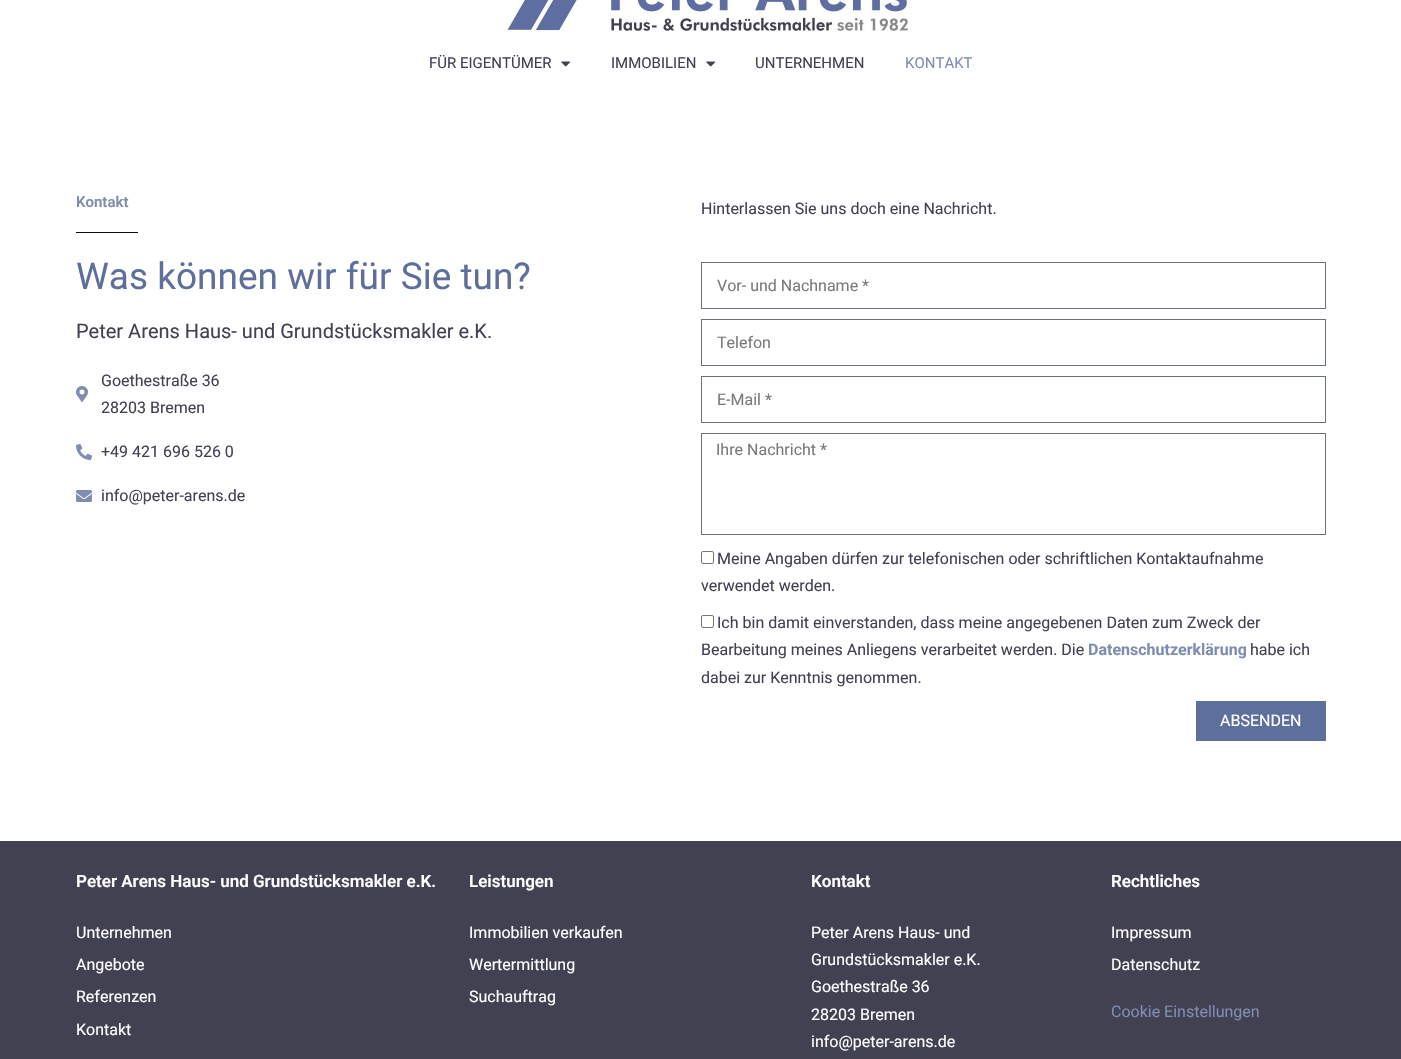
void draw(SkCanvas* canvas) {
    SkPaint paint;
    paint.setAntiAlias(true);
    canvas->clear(0xFFFFFFFF);
    canvas->drawImageRect(SkImages::DeferredFromEncodedData(SkData::MakeFromFileName("img1.png")), SkRect::MakeXYWH(502, 0, 406, 31), SkSamplingOptions());
    SkFont font1(fontMgr->matchFamilyStyle("Roboto", SkFontStyle::Normal()), 15);
    font1.setSubpixel(true);
    paint.setColor(0xFF424152);
    canvas->drawString("FÜR EIGENTÜMER", 429, 68, font1, paint);
    canvas->drawImageRect(SkImages::DeferredFromEncodedData(SkData::MakeFromFileName("img2.png")), SkRect::MakeXYWH(561, 61, 9, 6), SkSamplingOptions());
    canvas->drawString("IMMOBILIEN", 611, 68, font1, paint);
    canvas->drawImageRect(SkImages::DeferredFromEncodedData(SkData::MakeFromFileName("img2.png")), SkRect::MakeXYWH(706, 61, 9, 6), SkSamplingOptions());
    canvas->drawString("UNTERNEHMEN", 755, 68, font1, paint);
    paint.setColor(0xFF7F8DB0);
    canvas->drawString("KONTAKT", 905, 68, font1, paint);
    SkFont font2(fontMgr->matchFamilyStyle("Roboto", SkFontStyle(600, SkFontStyle::kNormal_Width, SkFontStyle::kUpright_Slant)), 15);
    font2.setSubpixel(true);
    canvas->drawString("Kontakt", 76, 207, font2, paint);
    paint.setColor(0xFF0C0D0E);
    canvas->drawRect(SkRect::MakeXYWH(76, 232, 62, 1), paint);
    SkFont font3(fontMgr->matchFamilyStyle("Roboto", SkFontStyle::Normal()), 37);
    font3.setSubpixel(true);
    paint.setColor(0xFF5E6F9B);
    canvas->drawString("Was können wir für Sie tun?", 76, 289, font3, paint);
    SkFont font4(fontMgr->matchFamilyStyle("Roboto", SkFontStyle::Normal()), 20);
    font4.setSubpixel(true);
    paint.setColor(0xFF424152);
    canvas->drawString("Peter Arens Haus- und Grundstücksmakler e.K.", 76, 338, font4, paint);
    canvas->drawImageRect(SkImages::DeferredFromEncodedData(SkData::MakeFromFileName("img3.png")), SkRect::MakeXYWH(76, 386, 12, 16), SkSamplingOptions());
    SkFont font5(fontMgr->matchFamilyStyle("Roboto", SkFontStyle::Normal()), 16);
    font5.setSubpixel(true);
    canvas->drawString("Goethestraße 36", 101, 386, font5, paint);
    canvas->drawString("28203 Bremen", 101, 413, font5, paint);
    canvas->drawImageRect(SkImages::DeferredFromEncodedData(SkData::MakeFromFileName("img4.png")), SkRect::MakeXYWH(76, 444, 16, 16), SkSamplingOptions());
    canvas->drawString("+49 421 696 526 0", 101, 457, font5, paint);
    canvas->drawImageRect(SkImages::DeferredFromEncodedData(SkData::MakeFromFileName("img5.png")), SkRect::MakeXYWH(76, 490, 16, 12), SkSamplingOptions());
    canvas->drawString("info@peter-arens.de", 101, 501, font5, paint);
    canvas->drawString("Hinterlassen Sie uns doch eine Nachricht.", 701, 214, font5, paint);
    paint.setStyle(SkPaint::kStroke_Style);
    paint.setStrokeWidth(1);
    paint.setColor(0xFF69727D);
    canvas->drawRect(SkRect::MakeXYWH(701.5f, 262.5f, 624, 46), paint);
    paint.setStyle(SkPaint::kFill_Style);
    paint.setColor(0xFF797A7C);
    canvas->drawString("Vor- und Nachname *", 717, 291, font5, paint);
    paint.setStyle(SkPaint::kStroke_Style);
    paint.setColor(0xFF69727D);
    canvas->drawRect(SkRect::MakeXYWH(701.5f, 319.5f, 624, 46), paint);
    paint.setStyle(SkPaint::kFill_Style);
    paint.setColor(0xFF797A7C);
    canvas->drawString("Telefon", 717, 348, font5, paint);
    paint.setStyle(SkPaint::kStroke_Style);
    paint.setColor(0xFF69727D);
    canvas->drawRect(SkRect::MakeXYWH(701.5f, 376.5f, 624, 46), paint);
    paint.setStyle(SkPaint::kFill_Style);
    paint.setColor(0xFF797A7C);
    canvas->drawString("E-Mail *", 717, 405, font5, paint);
    paint.setStyle(SkPaint::kStroke_Style);
    paint.setColor(0xFF69727D);
    canvas->drawRect(SkRect::MakeXYWH(701.5f, 433.5f, 624, 101), paint);
    paint.setStyle(SkPaint::kFill_Style);
    paint.setColor(0xFF797A7C);
    canvas->drawString("Ihre Nachricht *", 716, 455, font5, paint);
    paint.setStyle(SkPaint::kStroke_Style);
    paint.setColor(0xFF767676);
    canvas->drawRoundRect(SkRect::MakeXYWH(701.5f, 551.5f, 12, 12), 1.5f, 1.5f, paint);
    paint.setStyle(SkPaint::kFill_Style);
    paint.setColor(0xFF424152);
    canvas->drawString("Meine Angaben dürfen zur telefonischen oder schriftlichen Kontaktaufnahme", 717, 564, font5, paint);
    canvas->drawString("verwendet werden.", 701, 591, font5, paint);
    paint.setStyle(SkPaint::kStroke_Style);
    paint.setColor(0xFF767676);
    canvas->drawRoundRect(SkRect::MakeXYWH(701.5f, 615.5f, 12, 12), 1.5f, 1.5f, paint);
    paint.setStyle(SkPaint::kFill_Style);
    paint.setColor(0xFF424152);
    canvas->drawString("Ich bin damit einverstanden, dass meine angegebenen Daten zum Zweck der", 717, 628, font5, paint);
    canvas->drawString("Bearbeitung meines Anliegens verarbeitet werden. Die", 701, 655, font5, paint);
    SkFont font6(fontMgr->matchFamilyStyle("Roboto", SkFontStyle::Bold()), 16);
    font6.setSubpixel(true);
    paint.setColor(0xFF7F8DB0);
    canvas->drawString("Datenschutzerklärung", 1088, 655, font6, paint);
    paint.setColor(0xFF424152);
    canvas->drawString("habe ich", 1250, 655, font5, paint);
    canvas->drawString("dabei zur Kenntnis genommen.", 701, 683, font5, paint);
    paint.setColor(0xFF5E6F9B);
    canvas->drawRect(SkRect::MakeXYWH(1196, 701, 130, 40), paint);
    paint.setColor(0xFFFFFFFF);
    canvas->drawString("ABSENDEN", 1220, 726, font5, paint);
    paint.setColor(0xFF424152);
    canvas->drawRect(SkRect::MakeXYWH(0, 841, 1401, 218), paint);
    SkFont font7(fontMgr->matchFamilyStyle("Roboto", SkFontStyle(600, SkFontStyle::kNormal_Width, SkFontStyle::kUpright_Slant)), 17);
    font7.setSubpixel(true);
    paint.setColor(0xFFFFFFFF);
    canvas->drawString("Peter Arens Haus- und Grundstücksmakler e.K.", 76, 887, font7, paint);
    canvas->drawString("Unternehmen", 76, 938, font5, paint);
    canvas->drawString("Angebote", 76, 970, font5, paint);
    canvas->drawString("Referenzen", 76, 1002, font5, paint);
    canvas->drawString("Kontakt", 76, 1035, font5, paint);
    canvas->drawString("Leistungen", 469, 887, font7, paint);
    canvas->drawString("Immobilien verkaufen", 469, 938, font5, paint);
    canvas->drawString("Wertermittlung", 469, 970, font5, paint);
    canvas->drawString("Suchauftrag", 469, 1002, font5, paint);
    canvas->drawString("Kontakt", 811, 887, font7, paint);
    canvas->drawString("Peter Arens Haus- und", 811, 938, font5, paint);
    canvas->drawString("Grundstücksmakler e.K.", 811, 965, font5, paint);
    canvas->drawString("Goethestraße 36", 811, 992, font5, paint);
    canvas->drawString("28203 Bremen", 811, 1020, font5, paint);
    canvas->drawString("info@peter-arens.de", 811, 1047, font5, paint);
    canvas->drawString("Rechtliches", 1111, 887, font7, paint);
    canvas->drawString("Impressum", 1111, 938, font5, paint);
    canvas->drawString("Datenschutz", 1111, 970, font5, paint);
    paint.setColor(0xFF7F8DB0);
    canvas->drawString("Cookie Einstellungen", 1111, 1017, font5, paint);
}
